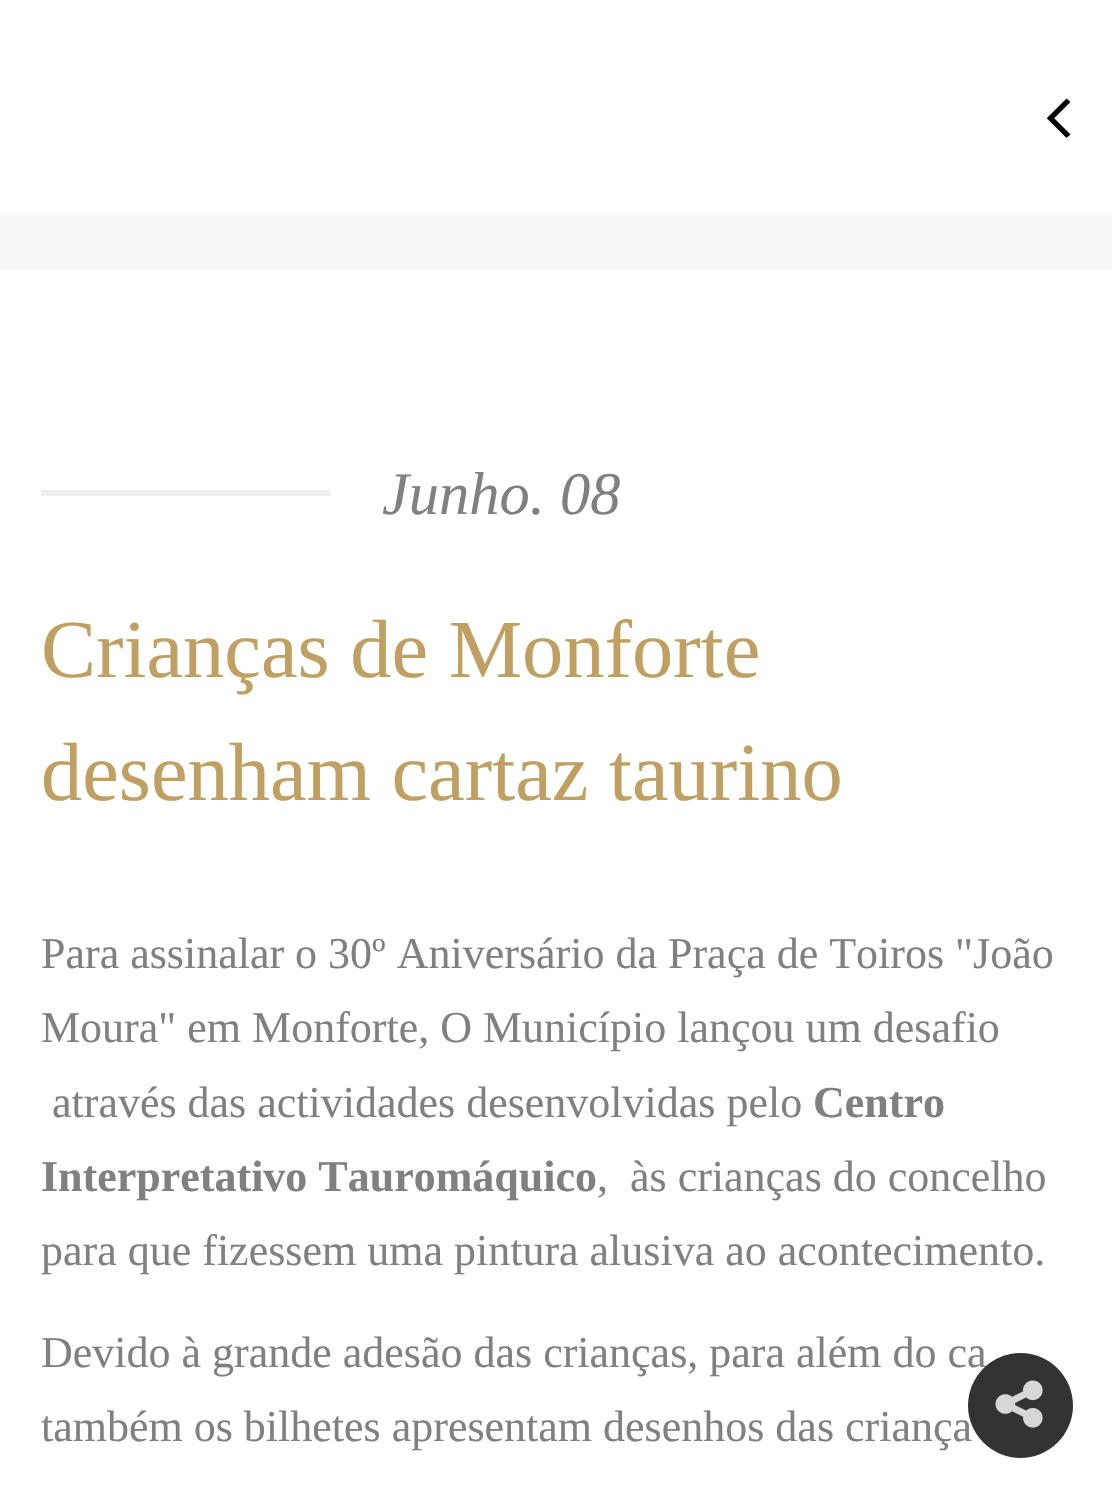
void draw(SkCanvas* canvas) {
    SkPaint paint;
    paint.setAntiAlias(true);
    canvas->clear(0xFFFFFFFF);
    paint.setColor(0xFF000000);
    canvas->drawPath(SkPathBuilder().moveTo(1051, 115).lineTo(1070.5f, 134.5f).lineTo(1066.5f, 138).lineTo(1047, 118.5f).close().detach(), paint);
    canvas->drawPath(SkPathBuilder().moveTo(1047, 118).lineTo(1066.5f, 98.5f).lineTo(1070.5f, 102).lineTo(1051, 121.5f).close().detach(), paint);
    paint.setColor(0xFFF8F8F8);
    canvas->drawRect(SkRect::MakeXYWH(0, 215, 1112, 55), paint);
    paint.setColor(0xFFEEEEEE);
    canvas->drawRect(SkRect::MakeXYWH(41, 490, 289, 6), paint);
    SkFont font1(fontMgr->matchFamilyStyle("Liberation Serif", SkFontStyle::Italic()), 60.5f);
    font1.setSubpixel(true);
    paint.setColor(0xFF808080);
    canvas->drawString("Junho. 08", 382, 514, font1, paint);
    SkFont font2(fontMgr->matchFamilyStyle("Liberation Serif", SkFontStyle::Normal()), 82.5f);
    font2.setSubpixel(true);
    paint.setColor(0xFFC0A062);
    canvas->drawString("Crianças de Monforte", 41, 677, font2, paint);
    canvas->drawString("desenham cartaz taurino", 41, 800, font2, paint);
    SkFont font3(fontMgr->matchFamilyStyle("Liberation Serif", SkFontStyle::Normal()), 44);
    font3.setSubpixel(true);
    paint.setColor(0xFF808080);
    canvas->drawString("Para assinalar o 30º Aniversário da Praça de Toiros \"João", 41, 968, font3, paint);
    canvas->drawString("Moura\" em Monforte, O Município lançou um desafio", 41, 1042, font3, paint);
    canvas->drawString("através das actividades desenvolvidas pelo", 52, 1117, font3, paint);
    SkFont font4(fontMgr->matchFamilyStyle("Liberation Serif", SkFontStyle::Bold()), 44);
    font4.setSubpixel(true);
    canvas->drawString("Centro", 813, 1117, font4, paint);
    canvas->drawString("Interpretativo Tauromáquico", 41, 1191, font4, paint);
    canvas->drawString(",  às crianças do concelho", 597, 1191, font3, paint);
    canvas->drawString("para que fizessem uma pintura alusiva ao acontecimento.", 41, 1265, font3, paint);
    canvas->drawString("Devido à grande adesão das crianças, para além do ca", 41, 1367, font3, paint);
    canvas->drawString("também os bilhetes apresentam desenhos das criança", 41, 1441, font3, paint);
    paint.setColor(0xCC000000);
    canvas->drawCircle(1020.5f, 1405.5f, 52.5f, paint);
    canvas->drawImageRect(SkImages::DeferredFromEncodedData(SkData::MakeFromFileName("img1.png")), SkRect::MakeXYWH(995, 1380, 48, 48), SkSamplingOptions());
}
